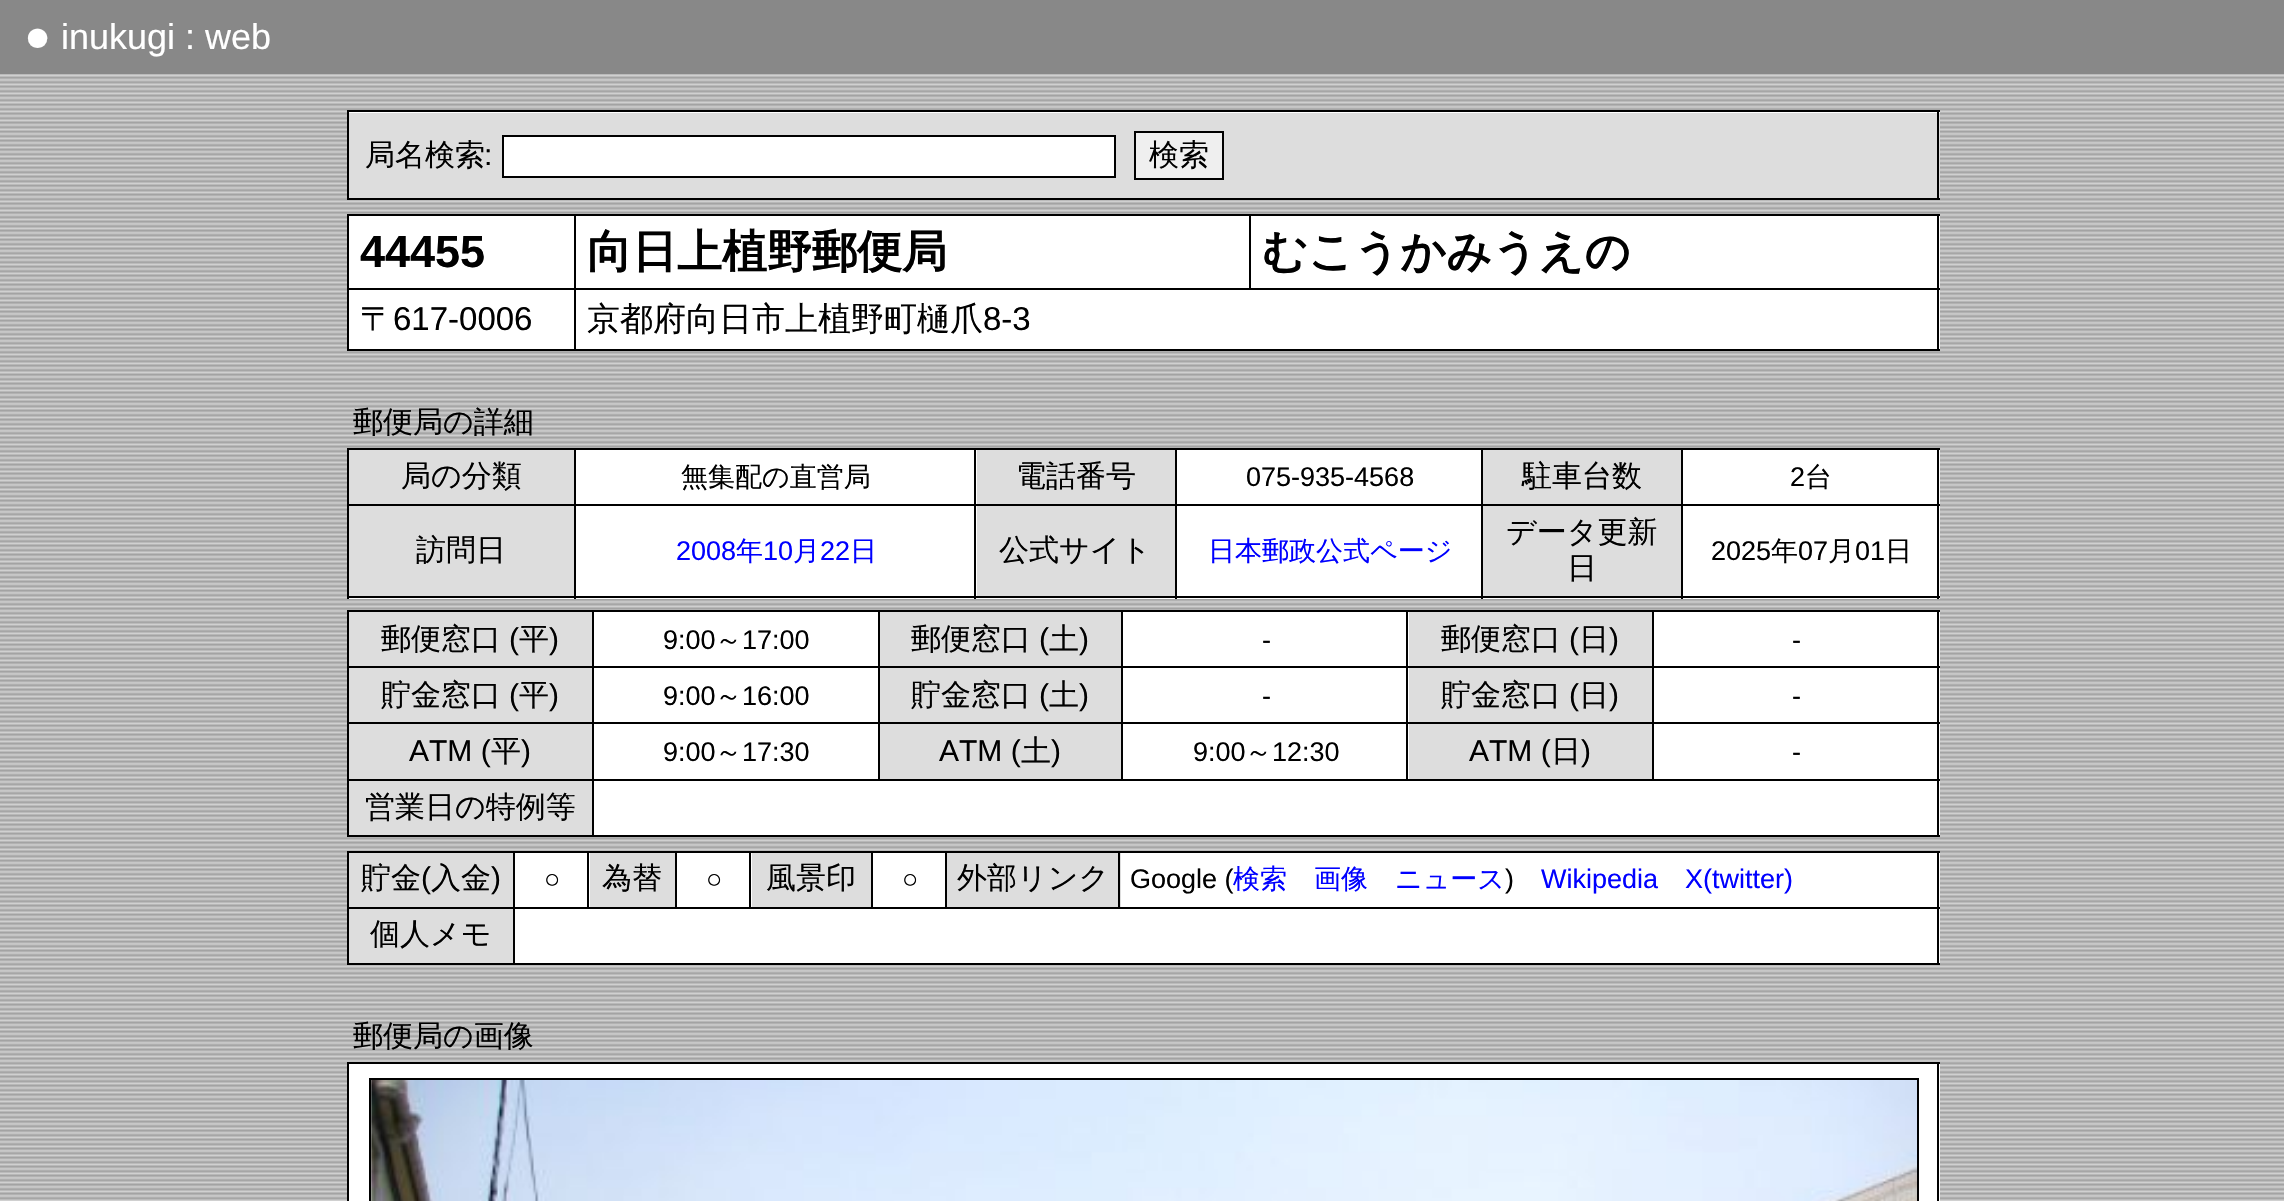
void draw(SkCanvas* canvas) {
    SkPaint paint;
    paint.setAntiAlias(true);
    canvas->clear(0xFFFFFFFF);
    canvas->drawImageRect(SkImages::DeferredFromEncodedData(SkData::MakeFromFileName("img1.png")), SkRect::MakeXYWH(0, 74, 2284, 1127), SkSamplingOptions());
    paint.setColor(0xFF888888);
    canvas->drawRect(SkRect::MakeXYWH(0, 0, 2284, 74), paint);
    SkFont font1(fontMgr->matchFamilyStyle("Liberation Sans", SkFontStyle::Normal()), 45);
    font1.setSubpixel(true);
    paint.setColor(0xFFFFFFFF);
    canvas->drawString("●", 24, 51, font1, paint);
    SkFont font2(fontMgr->matchFamilyStyle("Liberation Sans", SkFontStyle::Normal()), 36);
    font2.setSubpixel(true);
    canvas->drawString("inukugi : web", 61, 49, font2, paint);
    canvas->drawRect(SkRect::MakeXYWH(349, 112, 1591, 1), paint);
    paint.setColor(0xFF000000);
    canvas->drawRect(SkRect::MakeXYWH(347, 110, 1593, 2), paint);
    canvas->drawRect(SkRect::MakeXYWH(347, 110, 2, 90), paint);
    paint.setColor(0xFFDDDDDD);
    canvas->drawRect(SkRect::MakeXYWH(349, 113, 1591, 85), paint);
    paint.setColor(0xFF000000);
    canvas->drawRect(SkRect::MakeXYWH(1937, 110, 2, 90), paint);
    canvas->drawRect(SkRect::MakeXYWH(347, 198, 1593, 2), paint);
    SkFont font3(fontMgr->matchFamilyStyle("WenQuanYi Zen Hei", SkFontStyle(500, SkFontStyle::kNormal_Width, SkFontStyle::kUpright_Slant)), 30);
    font3.setSubpixel(true);
    canvas->drawString("局名検索", 365, 165, font3, paint);
    SkFont font4(fontMgr->matchFamilyStyle("Liberation Sans", SkFontStyle::Normal()), 30);
    font4.setSubpixel(true);
    canvas->drawString(":", 484, 165, font4, paint);
    paint.setColor(0xFFFFFFFF);
    canvas->drawRect(SkRect::MakeXYWH(503, 136, 612, 41), paint);
    paint.setStyle(SkPaint::kStroke_Style);
    paint.setStrokeWidth(2);
    paint.setColor(0xFF000000);
    canvas->drawRect(SkRect::MakeXYWH(503, 136, 612, 41), paint);
    paint.setStyle(SkPaint::kFill_Style);
    paint.setColor(0xFFEFEFEF);
    canvas->drawRect(SkRect::MakeXYWH(1135, 132, 88, 47), paint);
    paint.setStyle(SkPaint::kStroke_Style);
    paint.setColor(0xFF000000);
    canvas->drawRect(SkRect::MakeXYWH(1135, 132, 88, 47), paint);
    paint.setStyle(SkPaint::kFill_Style);
    canvas->drawString("検索", 1149, 165, font3, paint);
    paint.setColor(0xFFFFFFFF);
    canvas->drawRect(SkRect::MakeXYWH(349, 216, 1591, 133), paint);
    paint.setColor(0xFF000000);
    canvas->drawRect(SkRect::MakeXYWH(347, 214, 1593, 2), paint);
    canvas->drawRect(SkRect::MakeXYWH(347, 214, 2, 137), paint);
    canvas->drawRect(SkRect::MakeXYWH(1937, 214, 2, 137), paint);
    canvas->drawRect(SkRect::MakeXYWH(1249, 288, 691, 2), paint);
    canvas->drawRect(SkRect::MakeXYWH(1249, 214, 2, 76), paint);
    canvas->drawRect(SkRect::MakeXYWH(574, 349, 1366, 2), paint);
    canvas->drawRect(SkRect::MakeXYWH(574, 288, 2, 63), paint);
    canvas->drawRect(SkRect::MakeXYWH(574, 288, 677, 2), paint);
    canvas->drawRect(SkRect::MakeXYWH(574, 214, 2, 76), paint);
    canvas->drawRect(SkRect::MakeXYWH(347, 288, 229, 2), paint);
    SkFont font5(fontMgr->matchFamilyStyle("Liberation Sans", SkFontStyle::Bold()), 45);
    font5.setSubpixel(true);
    canvas->drawString("44455", 360, 267, font5, paint);
    SkFont font6(fontMgr->matchFamilyStyle("WenQuanYi Zen Hei", SkFontStyle::Bold()), 45);
    font6.setSubpixel(true);
    canvas->drawString("向日上植野郵便局", 587, 267, font6, paint);
    canvas->drawString("むこうかみうえの", 1262, 267, font6, paint);
    canvas->drawRect(SkRect::MakeXYWH(347, 349, 229, 2), paint);
    SkFont font7(fontMgr->matchFamilyStyle("WenQuanYi Zen Hei", SkFontStyle(500, SkFontStyle::kNormal_Width, SkFontStyle::kUpright_Slant)), 33);
    font7.setSubpixel(true);
    canvas->drawString("〒", 360, 330, font7, paint);
    SkFont font8(fontMgr->matchFamilyStyle("Liberation Sans", SkFontStyle::Normal()), 33);
    font8.setSubpixel(true);
    canvas->drawString("617-0006", 393, 330, font8, paint);
    canvas->drawString("京都府向日市上植野町樋爪", 587, 330, font7, paint);
    canvas->drawString("8-3", 983, 330, font8, paint);
    canvas->drawString("郵便局の詳細", 353, 432, font3, paint);
    paint.setColor(0xFFFFFFFF);
    canvas->drawRect(SkRect::MakeXYWH(349, 450, 1591, 149), paint);
    paint.setColor(0xFF000000);
    canvas->drawRect(SkRect::MakeXYWH(347, 448, 1593, 2), paint);
    canvas->drawRect(SkRect::MakeXYWH(347, 448, 2, 151), paint);
    paint.setColor(0xFFDDDDDD);
    canvas->drawRect(SkRect::MakeXYWH(349, 450, 225, 54), paint);
    paint.setColor(0xFF000000);
    canvas->drawRect(SkRect::MakeXYWH(1937, 448, 2, 151), paint);
    canvas->drawRect(SkRect::MakeXYWH(1681, 596, 259, 2), paint);
    canvas->drawRect(SkRect::MakeXYWH(1681, 504, 2, 95), paint);
    canvas->drawRect(SkRect::MakeXYWH(1681, 504, 259, 2), paint);
    canvas->drawRect(SkRect::MakeXYWH(1681, 448, 2, 58), paint);
    canvas->drawRect(SkRect::MakeXYWH(1481, 596, 202, 2), paint);
    canvas->drawRect(SkRect::MakeXYWH(1481, 504, 2, 95), paint);
    canvas->drawRect(SkRect::MakeXYWH(1481, 504, 202, 2), paint);
    canvas->drawRect(SkRect::MakeXYWH(1481, 448, 2, 58), paint);
    canvas->drawRect(SkRect::MakeXYWH(1175, 596, 308, 2), paint);
    canvas->drawRect(SkRect::MakeXYWH(1175, 504, 2, 95), paint);
    canvas->drawRect(SkRect::MakeXYWH(1175, 504, 308, 2), paint);
    canvas->drawRect(SkRect::MakeXYWH(1175, 448, 2, 58), paint);
    canvas->drawRect(SkRect::MakeXYWH(974, 596, 203, 2), paint);
    canvas->drawRect(SkRect::MakeXYWH(974, 504, 2, 95), paint);
    canvas->drawRect(SkRect::MakeXYWH(974, 504, 203, 2), paint);
    canvas->drawRect(SkRect::MakeXYWH(974, 448, 2, 58), paint);
    canvas->drawRect(SkRect::MakeXYWH(574, 596, 403, 2), paint);
    canvas->drawRect(SkRect::MakeXYWH(574, 504, 2, 95), paint);
    canvas->drawRect(SkRect::MakeXYWH(574, 504, 403, 2), paint);
    canvas->drawRect(SkRect::MakeXYWH(574, 448, 2, 58), paint);
    canvas->drawRect(SkRect::MakeXYWH(347, 504, 229, 2), paint);
    canvas->drawString("局の分類", 401, 486, font3, paint);
    SkFont font9(fontMgr->matchFamilyStyle("WenQuanYi Zen Hei", SkFontStyle(500, SkFontStyle::kNormal_Width, SkFontStyle::kUpright_Slant)), 27);
    font9.setSubpixel(true);
    canvas->drawString("無集配の直営局", 681, 486, font9, paint);
    paint.setColor(0xFFDDDDDD);
    canvas->drawRect(SkRect::MakeXYWH(977, 450, 198, 54), paint);
    paint.setColor(0xFF000000);
    canvas->drawString("電話番号", 1016, 486, font3, paint);
    SkFont font10(fontMgr->matchFamilyStyle("Liberation Sans", SkFontStyle::Normal()), 27);
    font10.setSubpixel(true);
    canvas->drawString("075-935-4568", 1246, 486, font10, paint);
    paint.setColor(0xFFDDDDDD);
    canvas->drawRect(SkRect::MakeXYWH(1483, 450, 198, 54), paint);
    paint.setColor(0xFF000000);
    canvas->drawString("駐車台数", 1522, 486, font3, paint);
    canvas->drawString("2", 1790, 486, font10, paint);
    canvas->drawString("台", 1805, 486, font9, paint);
    paint.setColor(0xFFDDDDDD);
    canvas->drawRect(SkRect::MakeXYWH(349, 506, 225, 90), paint);
    paint.setColor(0xFF000000);
    canvas->drawRect(SkRect::MakeXYWH(347, 596, 229, 2), paint);
    canvas->drawString("訪問日", 416, 560, font3, paint);
    paint.setColor(0xFF0000FF);
    canvas->drawString("2008", 676, 560, font10, paint);
    canvas->drawString("年", 736, 560, font9, paint);
    canvas->drawString("10", 763, 560, font10, paint);
    canvas->drawString("月", 793, 560, font9, paint);
    canvas->drawString("22", 820, 560, font10, paint);
    canvas->drawString("日", 850, 560, font9, paint);
    paint.setColor(0xFFDDDDDD);
    canvas->drawRect(SkRect::MakeXYWH(977, 506, 198, 90), paint);
    paint.setColor(0xFF000000);
    canvas->drawString("公式サイト", 999, 560, font3, paint);
    paint.setColor(0xFF0000FF);
    canvas->drawString("日本郵政公式ページ", 1208, 560, font9, paint);
    paint.setColor(0xFFDDDDDD);
    canvas->drawRect(SkRect::MakeXYWH(1483, 506, 198, 90), paint);
    paint.setColor(0xFF000000);
    canvas->drawString("データ更新", 1506, 542, font3, paint);
    canvas->drawString("日", 1567, 578, font3, paint);
    canvas->drawString("2025", 1711, 560, font10, paint);
    canvas->drawString("年", 1771, 560, font9, paint);
    canvas->drawString("07", 1798, 560, font10, paint);
    canvas->drawString("月", 1828, 560, font9, paint);
    canvas->drawString("01", 1855, 560, font10, paint);
    canvas->drawString("日", 1885, 560, font9, paint);
    paint.setColor(0xFFFFFFFF);
    canvas->drawRect(SkRect::MakeXYWH(594, 612, 1346, 223), paint);
    paint.setColor(0xFF000000);
    canvas->drawRect(SkRect::MakeXYWH(347, 610, 1593, 2), paint);
    canvas->drawRect(SkRect::MakeXYWH(347, 610, 2, 227), paint);
    paint.setColor(0xFFDDDDDD);
    canvas->drawRect(SkRect::MakeXYWH(349, 612, 243, 54), paint);
    paint.setColor(0xFF000000);
    canvas->drawRect(SkRect::MakeXYWH(1937, 610, 2, 227), paint);
    canvas->drawRect(SkRect::MakeXYWH(1652, 779, 288, 2), paint);
    canvas->drawRect(SkRect::MakeXYWH(1652, 722, 2, 59), paint);
    canvas->drawRect(SkRect::MakeXYWH(1652, 722, 288, 2), paint);
    canvas->drawRect(SkRect::MakeXYWH(1652, 666, 2, 59), paint);
    canvas->drawRect(SkRect::MakeXYWH(1652, 666, 288, 2), paint);
    canvas->drawRect(SkRect::MakeXYWH(1652, 610, 2, 58), paint);
    paint.setColor(0xFFDDDDDD);
    canvas->drawRect(SkRect::MakeXYWH(1409, 668, 243, 111), paint);
    paint.setColor(0xFF000000);
    canvas->drawRect(SkRect::MakeXYWH(1406, 779, 248, 2), paint);
    canvas->drawRect(SkRect::MakeXYWH(1406, 722, 2, 59), paint);
    canvas->drawRect(SkRect::MakeXYWH(1406, 722, 248, 2), paint);
    canvas->drawRect(SkRect::MakeXYWH(1406, 666, 2, 59), paint);
    canvas->drawRect(SkRect::MakeXYWH(1406, 666, 248, 2), paint);
    canvas->drawRect(SkRect::MakeXYWH(1406, 610, 2, 58), paint);
    canvas->drawRect(SkRect::MakeXYWH(1121, 779, 288, 2), paint);
    canvas->drawRect(SkRect::MakeXYWH(1121, 722, 2, 59), paint);
    canvas->drawRect(SkRect::MakeXYWH(1121, 722, 288, 2), paint);
    canvas->drawRect(SkRect::MakeXYWH(1121, 666, 2, 59), paint);
    canvas->drawRect(SkRect::MakeXYWH(1121, 666, 288, 2), paint);
    canvas->drawRect(SkRect::MakeXYWH(1121, 610, 2, 58), paint);
    paint.setColor(0xFFDDDDDD);
    canvas->drawRect(SkRect::MakeXYWH(880, 668, 241, 111), paint);
    paint.setColor(0xFF000000);
    canvas->drawRect(SkRect::MakeXYWH(878, 779, 245, 2), paint);
    canvas->drawRect(SkRect::MakeXYWH(878, 722, 2, 59), paint);
    canvas->drawRect(SkRect::MakeXYWH(878, 722, 245, 2), paint);
    canvas->drawRect(SkRect::MakeXYWH(878, 666, 2, 59), paint);
    canvas->drawRect(SkRect::MakeXYWH(878, 666, 245, 2), paint);
    canvas->drawRect(SkRect::MakeXYWH(878, 610, 2, 58), paint);
    canvas->drawRect(SkRect::MakeXYWH(592, 835, 1348, 2), paint);
    canvas->drawRect(SkRect::MakeXYWH(592, 779, 2, 58), paint);
    canvas->drawRect(SkRect::MakeXYWH(592, 779, 288, 2), paint);
    canvas->drawRect(SkRect::MakeXYWH(592, 722, 2, 59), paint);
    canvas->drawRect(SkRect::MakeXYWH(592, 722, 288, 2), paint);
    canvas->drawRect(SkRect::MakeXYWH(592, 666, 2, 59), paint);
    canvas->drawRect(SkRect::MakeXYWH(592, 666, 288, 2), paint);
    canvas->drawRect(SkRect::MakeXYWH(592, 610, 2, 58), paint);
    canvas->drawRect(SkRect::MakeXYWH(347, 666, 247, 2), paint);
    canvas->drawString("郵便窓口", 381, 649, font3, paint);
    canvas->drawString("(", 509, 649, font4, paint);
    canvas->drawString("平", 519, 649, font3, paint);
    canvas->drawString(")", 549, 649, font4, paint);
    canvas->drawString("9:00", 663, 649, font10, paint);
    canvas->drawString("～", 715, 649, font9, paint);
    canvas->drawString("17:00", 742, 649, font10, paint);
    paint.setColor(0xFFDDDDDD);
    canvas->drawRect(SkRect::MakeXYWH(880, 612, 241, 54), paint);
    paint.setColor(0xFF000000);
    canvas->drawString("郵便窓口", 911, 649, font3, paint);
    canvas->drawString("(", 1039, 649, font4, paint);
    canvas->drawString("土", 1049, 649, font3, paint);
    canvas->drawString(")", 1079, 649, font4, paint);
    canvas->drawString("-", 1262, 649, font10, paint);
    paint.setColor(0xFFDDDDDD);
    canvas->drawRect(SkRect::MakeXYWH(1409, 612, 243, 54), paint);
    paint.setColor(0xFF000000);
    canvas->drawString("郵便窓口", 1441, 649, font3, paint);
    canvas->drawString("(", 1569, 649, font4, paint);
    canvas->drawString("日", 1579, 649, font3, paint);
    canvas->drawString(")", 1609, 649, font4, paint);
    canvas->drawString("-", 1792, 649, font10, paint);
    paint.setColor(0xFFDDDDDD);
    canvas->drawRect(SkRect::MakeXYWH(349, 668, 243, 111), paint);
    paint.setColor(0xFF000000);
    canvas->drawRect(SkRect::MakeXYWH(347, 722, 247, 2), paint);
    canvas->drawString("貯金窓口", 381, 705, font3, paint);
    canvas->drawString("(", 509, 705, font4, paint);
    canvas->drawString("平", 519, 705, font3, paint);
    canvas->drawString(")", 549, 705, font4, paint);
    canvas->drawString("9:00", 663, 705, font10, paint);
    canvas->drawString("～", 715, 705, font9, paint);
    canvas->drawString("16:00", 742, 705, font10, paint);
    canvas->drawString("貯金窓口", 911, 705, font3, paint);
    canvas->drawString("(", 1039, 705, font4, paint);
    canvas->drawString("土", 1049, 705, font3, paint);
    canvas->drawString(")", 1079, 705, font4, paint);
    canvas->drawString("-", 1262, 705, font10, paint);
    canvas->drawString("貯金窓口", 1441, 705, font3, paint);
    canvas->drawString("(", 1569, 705, font4, paint);
    canvas->drawString("日", 1579, 705, font3, paint);
    canvas->drawString(")", 1609, 705, font4, paint);
    canvas->drawString("-", 1792, 705, font10, paint);
    canvas->drawRect(SkRect::MakeXYWH(347, 779, 247, 2), paint);
    canvas->drawString("ATM (", 409, 761, font4, paint);
    canvas->drawString("平", 491, 761, font3, paint);
    canvas->drawString(")", 521, 761, font4, paint);
    canvas->drawString("9:00", 663, 761, font10, paint);
    canvas->drawString("～", 715, 761, font9, paint);
    canvas->drawString("17:30", 742, 761, font10, paint);
    canvas->drawString("ATM (", 939, 761, font4, paint);
    canvas->drawString("土", 1021, 761, font3, paint);
    canvas->drawString(")", 1051, 761, font4, paint);
    canvas->drawString("9:00", 1193, 761, font10, paint);
    canvas->drawString("～", 1245, 761, font9, paint);
    canvas->drawString("12:30", 1272, 761, font10, paint);
    canvas->drawString("ATM (", 1469, 761, font4, paint);
    canvas->drawString("日", 1551, 761, font3, paint);
    canvas->drawString(")", 1581, 761, font4, paint);
    canvas->drawString("-", 1792, 761, font10, paint);
    paint.setColor(0xFFDDDDDD);
    canvas->drawRect(SkRect::MakeXYWH(349, 781, 243, 54), paint);
    paint.setColor(0xFF000000);
    canvas->drawRect(SkRect::MakeXYWH(347, 835, 247, 2), paint);
    canvas->drawString("営業日の特例等", 365, 817, font3, paint);
    paint.setColor(0xFFFFFFFF);
    canvas->drawRect(SkRect::MakeXYWH(515, 853, 1425, 110), paint);
    paint.setColor(0xFF000000);
    canvas->drawRect(SkRect::MakeXYWH(347, 851, 1593, 2), paint);
    canvas->drawRect(SkRect::MakeXYWH(347, 851, 2, 114), paint);
    paint.setColor(0xFFDDDDDD);
    canvas->drawRect(SkRect::MakeXYWH(349, 853, 164, 54), paint);
    canvas->drawRect(SkRect::MakeXYWH(947, 853, 174, 54), paint);
    paint.setColor(0xFF000000);
    canvas->drawRect(SkRect::MakeXYWH(1937, 851, 2, 114), paint);
    canvas->drawRect(SkRect::MakeXYWH(1118, 907, 822, 2), paint);
    canvas->drawRect(SkRect::MakeXYWH(1118, 851, 2, 58), paint);
    canvas->drawRect(SkRect::MakeXYWH(945, 907, 176, 2), paint);
    canvas->drawRect(SkRect::MakeXYWH(945, 851, 2, 58), paint);
    canvas->drawRect(SkRect::MakeXYWH(871, 907, 76, 2), paint);
    canvas->drawRect(SkRect::MakeXYWH(871, 851, 2, 58), paint);
    canvas->drawRect(SkRect::MakeXYWH(749, 907, 124, 2), paint);
    canvas->drawRect(SkRect::MakeXYWH(749, 851, 2, 58), paint);
    canvas->drawRect(SkRect::MakeXYWH(675, 907, 77, 2), paint);
    canvas->drawRect(SkRect::MakeXYWH(675, 851, 2, 58), paint);
    canvas->drawRect(SkRect::MakeXYWH(587, 907, 90, 2), paint);
    canvas->drawRect(SkRect::MakeXYWH(587, 851, 2, 58), paint);
    canvas->drawRect(SkRect::MakeXYWH(513, 963, 1427, 2), paint);
    canvas->drawRect(SkRect::MakeXYWH(513, 907, 2, 58), paint);
    canvas->drawRect(SkRect::MakeXYWH(513, 907, 77, 2), paint);
    canvas->drawRect(SkRect::MakeXYWH(513, 851, 2, 58), paint);
    canvas->drawRect(SkRect::MakeXYWH(347, 907, 168, 2), paint);
    canvas->drawString("貯金", 361, 888, font3, paint);
    canvas->drawString("(", 421, 888, font4, paint);
    canvas->drawString("入金", 431, 888, font3, paint);
    canvas->drawString(")", 491, 888, font4, paint);
    canvas->drawString("○", 544, 888, font10, paint);
    paint.setColor(0xFFDDDDDD);
    canvas->drawRect(SkRect::MakeXYWH(590, 853, 85, 54), paint);
    paint.setColor(0xFF000000);
    canvas->drawString("為替", 602, 888, font3, paint);
    canvas->drawString("○", 706, 888, font10, paint);
    paint.setColor(0xFFDDDDDD);
    canvas->drawRect(SkRect::MakeXYWH(752, 853, 119, 54), paint);
    paint.setColor(0xFF000000);
    canvas->drawString("風景印", 766, 888, font3, paint);
    canvas->drawString("○", 902, 888, font10, paint);
    canvas->drawString("外部リンク", 957, 888, font3, paint);
    canvas->drawString("Google (", 1130, 888, font10, paint);
    paint.setColor(0xFF0000FF);
    canvas->drawString("検索", 1233, 888, font9, paint);
    canvas->drawString("画像", 1314, 888, font9, paint);
    canvas->drawString("ニュース", 1395, 888, font9, paint);
    paint.setColor(0xFF000000);
    canvas->drawString(")", 1505, 888, font10, paint);
    paint.setColor(0xFF0000FF);
    canvas->drawString("Wikipedia", 1541, 888, font10, paint);
    canvas->drawString("X(twitter)", 1685, 888, font10, paint);
    paint.setColor(0xFFDDDDDD);
    canvas->drawRect(SkRect::MakeXYWH(349, 909, 164, 54), paint);
    paint.setColor(0xFF000000);
    canvas->drawRect(SkRect::MakeXYWH(347, 963, 168, 2), paint);
    canvas->drawString("個人メモ", 370, 944, font3, paint);
    canvas->drawString("郵便局の画像", 353, 1046, font3, paint);
    paint.setColor(0xFFFFFFFF);
    canvas->drawRect(SkRect::MakeXYWH(349, 1064, 1591, 137), paint);
    paint.setColor(0xFF000000);
    canvas->drawRect(SkRect::MakeXYWH(347, 1062, 1593, 2), paint);
    canvas->drawRect(SkRect::MakeXYWH(347, 1062, 2, 139), paint);
    canvas->drawRect(SkRect::MakeXYWH(1937, 1062, 2, 139), paint);
    paint.setStyle(SkPaint::kStroke_Style);
    canvas->drawRect(SkRect::MakeXYWH(370, 1079, 1548, 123), paint);
    canvas->drawImageRect(SkImages::DeferredFromEncodedData(SkData::MakeFromFileName("img2.png")), SkRect::MakeXYWH(371, 1080, 1546, 121), SkSamplingOptions());
}
